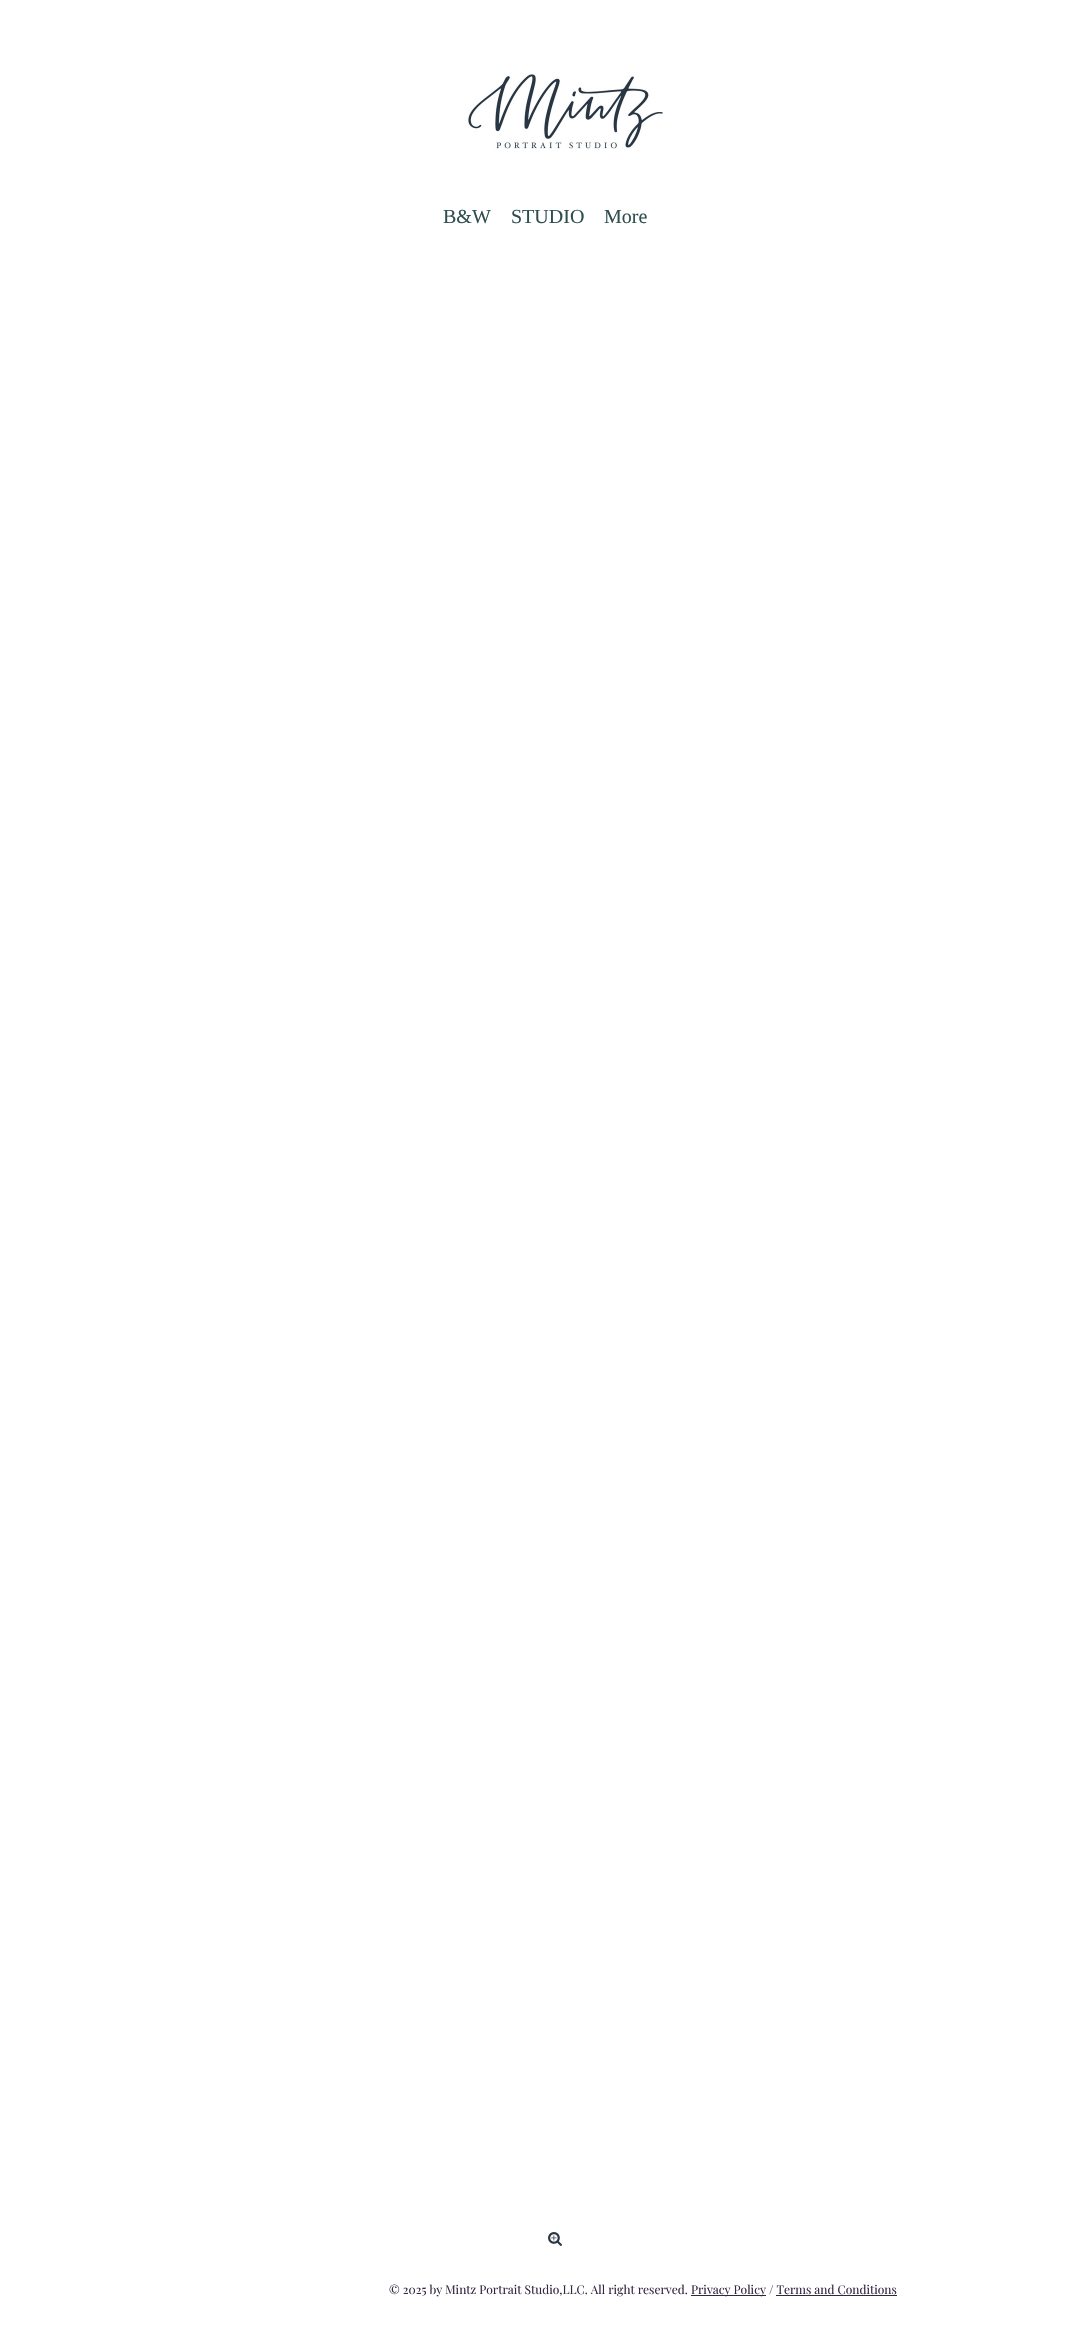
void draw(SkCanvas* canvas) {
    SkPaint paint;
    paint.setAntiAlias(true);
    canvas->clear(0xFFFFFFFF);
    canvas->drawImageRect(SkImages::DeferredFromEncodedData(SkData::MakeFromFileName("img1.png")), SkRect::MakeXYWH(467, 73, 196, 76), SkSamplingOptions());
    SkFont font1(fontMgr->matchFamilyStyle("Liberation Serif", SkFontStyle::Normal()), 20);
    font1.setSubpixel(true);
    paint.setColor(0xFF2F4F4F);
    canvas->drawString("B&W", 443, 223, font1, paint);
    canvas->drawString("STUDIO", 511, 223, font1, paint);
    canvas->drawString("More", 604, 223, font1, paint);
    canvas->drawImageRect(SkImages::DeferredFromEncodedData(SkData::MakeFromFileName("img2.png")), SkRect::MakeXYWH(548, 2232, 14, 14), SkSamplingOptions());
    SkFont font2(fontMgr->matchFamilyStyle("Playfair Display", SkFontStyle::Normal()), 12);
    font2.setSubpixel(true);
    paint.setColor(0xFF322642);
    canvas->drawString("© 2025 by Mintz Portrait Studio,LLC. All right reserved.", 389, 2294, font2, paint);
    canvas->drawRect(SkRect::MakeXYWH(691, 2295, 75, 1), paint);
    canvas->drawString("Privacy Policy / Terms and Conditions", 691, 2294, font2, paint);
    canvas->drawRect(SkRect::MakeXYWH(776, 2295, 121, 1), paint);
}
